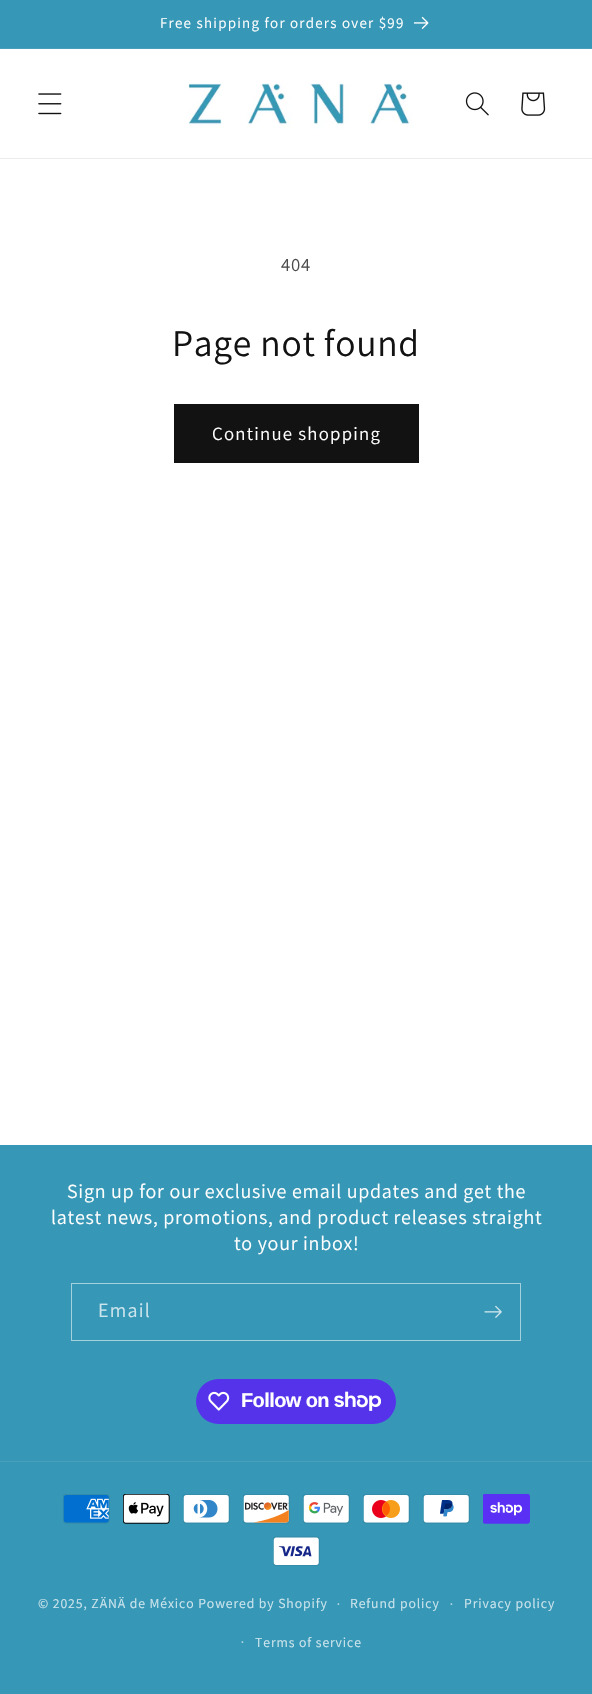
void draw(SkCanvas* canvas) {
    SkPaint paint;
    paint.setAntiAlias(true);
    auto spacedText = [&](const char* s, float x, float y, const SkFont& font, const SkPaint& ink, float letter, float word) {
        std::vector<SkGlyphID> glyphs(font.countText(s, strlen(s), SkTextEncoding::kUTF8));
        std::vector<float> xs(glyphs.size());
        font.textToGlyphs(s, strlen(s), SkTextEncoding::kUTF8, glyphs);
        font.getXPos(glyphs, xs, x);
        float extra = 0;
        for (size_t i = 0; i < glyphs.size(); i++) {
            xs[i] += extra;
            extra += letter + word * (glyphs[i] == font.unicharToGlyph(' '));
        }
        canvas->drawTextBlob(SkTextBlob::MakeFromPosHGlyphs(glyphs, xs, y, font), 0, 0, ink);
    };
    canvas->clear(0xFFFFFFFF);
    paint.setColor(0xFF3797B6);
    canvas->drawRect(SkRect::MakeXYWH(0, 0, 592, 48), paint);
    paint.setColor(0xFF479FBC);
    canvas->drawRect(SkRect::MakeXYWH(0, 48, 592, 1), paint);
    SkFont font1(fontMgr->matchFamilyStyle("Assistant", SkFontStyle::Normal()), 15);
    font1.setSubpixel(true);
    paint.setColor(0xFFFFFFFF);
    spacedText("Free shipping for orders over $99", 160, 28, font1, paint, 1.25f, 0);
    canvas->drawImageRect(SkImages::DeferredFromEncodedData(SkData::MakeFromFileName("img1.png")), SkRect::MakeXYWH(414, 16, 15, 13), SkSamplingOptions());
    paint.setColor(0xFFECECEC);
    canvas->drawRect(SkRect::MakeXYWH(0, 158, 592, 1), paint);
    canvas->drawImageRect(SkImages::DeferredFromEncodedData(SkData::MakeFromFileName("img2.png")), SkRect::MakeXYWH(38, 93, 24, 22), SkSamplingOptions());
    canvas->drawImageRect(SkImages::DeferredFromEncodedData(SkData::MakeFromFileName("img3.png")), SkRect::MakeXYWH(188, 83, 225, 46), SkSamplingOptions());
    canvas->drawImageRect(SkImages::DeferredFromEncodedData(SkData::MakeFromFileName("img4.png")), SkRect::MakeXYWH(465, 92, 24, 24), SkSamplingOptions());
    canvas->drawImageRect(SkImages::DeferredFromEncodedData(SkData::MakeFromFileName("img5.png")), SkRect::MakeXYWH(521, 92, 25, 24), SkSamplingOptions());
    SkFont font2(fontMgr->matchFamilyStyle("Assistant", SkFontStyle::Normal()), 18.75f);
    font2.setSubpixel(true);
    paint.setColor(0xFF4D4D4D);
    spacedText("404", 281, 271, font2, paint, 0.75f, 0);
    SkFont font3(fontMgr->matchFamilyStyle("Assistant", SkFontStyle::Normal()), 37.5f);
    font3.setSubpixel(true);
    paint.setColor(0xFF121212);
    spacedText("Page not found", 172, 356, font3, paint, 0.75f, 0);
    canvas->drawRect(SkRect::MakeXYWH(174, 404, 245, 59), paint);
    paint.setColor(0xFFFFFFFF);
    spacedText("Continue shopping", 212, 440, font2, paint, 1.25f, 0);
    paint.setColor(0xFF3797B6);
    canvas->drawRect(SkRect::MakeXYWH(0, 1145, 592, 549), paint);
    SkFont font4(fontMgr->matchFamilyStyle("Assistant", SkFontStyle::Normal()), 20);
    font4.setSubpixel(true);
    paint.setColor(0xFFFFFFFF);
    spacedText("Sign up for our exclusive email updates and get the", 67, 1198, font4, paint, 0.75f, 0);
    spacedText("latest news, promotions, and product releases straight", 51, 1224, font4, paint, 0.75f, 0);
    spacedText("to your inbox!", 234, 1250, font4, paint, 0.75f, 0);
    paint.setStyle(SkPaint::kStroke_Style);
    paint.setStrokeWidth(1);
    paint.setColor(0xFFA5D0DE);
    canvas->drawRect(SkRect::MakeXYWH(71.5f, 1283.5f, 449, 57), paint);
    paint.setStyle(SkPaint::kFill_Style);
    paint.setColor(0xFFCDE5ED);
    spacedText("Email", 98, 1317, font4, paint, 1.25f, 0);
    canvas->drawImageRect(SkImages::DeferredFromEncodedData(SkData::MakeFromFileName("img6.png")), SkRect::MakeXYWH(484, 1305, 18, 13), SkSamplingOptions());
    paint.setColor(0xFF5433EB);
    canvas->drawRoundRect(SkRect::MakeXYWH(196, 1379, 200, 45), 22.5f, 22.5f, paint);
    canvas->drawImageRect(SkImages::DeferredFromEncodedData(SkData::MakeFromFileName("img7.png")), SkRect::MakeXYWH(208, 1391, 22, 20), SkSamplingOptions());
    SkFont font5(fontMgr->matchFamilyStyle("Liberation Sans", SkFontStyle::Bold()), 20);
    font5.setSubpixel(true);
    paint.setColor(0xFFFFFFFF);
    spacedText("Follow on", 241, 1407, font5, paint, -0.6f, 0);
    canvas->drawImageRect(SkImages::DeferredFromEncodedData(SkData::MakeFromFileName("img8.png")), SkRect::MakeXYWH(334, 1391, 47, 20), SkSamplingOptions());
    paint.setColor(0xFF479FBC);
    canvas->drawRect(SkRect::MakeXYWH(0, 1461, 592, 1), paint);
    canvas->drawImageRect(SkImages::DeferredFromEncodedData(SkData::MakeFromFileName("img9.png")), SkRect::MakeXYWH(63, 1494, 47, 30), SkSamplingOptions());
    canvas->drawImageRect(SkImages::DeferredFromEncodedData(SkData::MakeFromFileName("img10.png")), SkRect::MakeXYWH(123, 1494, 47, 30), SkSamplingOptions());
    canvas->drawImageRect(SkImages::DeferredFromEncodedData(SkData::MakeFromFileName("img11.png")), SkRect::MakeXYWH(183, 1494, 47, 30), SkSamplingOptions());
    canvas->drawImageRect(SkImages::DeferredFromEncodedData(SkData::MakeFromFileName("img12.png")), SkRect::MakeXYWH(243, 1494, 47, 30), SkSamplingOptions());
    canvas->drawImageRect(SkImages::DeferredFromEncodedData(SkData::MakeFromFileName("img13.png")), SkRect::MakeXYWH(303, 1494, 47, 30), SkSamplingOptions());
    canvas->drawImageRect(SkImages::DeferredFromEncodedData(SkData::MakeFromFileName("img14.png")), SkRect::MakeXYWH(363, 1494, 47, 30), SkSamplingOptions());
    canvas->drawImageRect(SkImages::DeferredFromEncodedData(SkData::MakeFromFileName("img15.png")), SkRect::MakeXYWH(423, 1494, 47, 30), SkSamplingOptions());
    canvas->drawImageRect(SkImages::DeferredFromEncodedData(SkData::MakeFromFileName("img16.png")), SkRect::MakeXYWH(483, 1494, 47, 30), SkSamplingOptions());
    canvas->drawImageRect(SkImages::DeferredFromEncodedData(SkData::MakeFromFileName("img17.png")), SkRect::MakeXYWH(273, 1536, 47, 30), SkSamplingOptions());
    SkFont font6(fontMgr->matchFamilyStyle("Assistant", SkFontStyle::Normal()), 13.75f);
    font6.setSubpixel(true);
    paint.setColor(0xFFCDE5ED);
    spacedText("© 2025, ZÄNÄ de México Powered by Shopify", 38, 1608, font6, paint, 0.9f, 0);
    SkFont font7(fontMgr->matchFamilyStyle("Assistant", SkFontStyle::Normal()), 12);
    font7.setSubpixel(true);
    spacedText("·", 337, 1608, font7, paint, 0.9f, 0);
    spacedText("Refund policy", 350, 1608, font6, paint, 0.9f, 0);
    spacedText("·", 450, 1608, font7, paint, 0.9f, 0);
    spacedText("Privacy policy", 464, 1608, font6, paint, 0.9f, 0);
    spacedText("·", 241, 1646, font7, paint, 0.9f, 0);
    spacedText("Terms of service", 255, 1647, font6, paint, 0.9f, 0);
}
